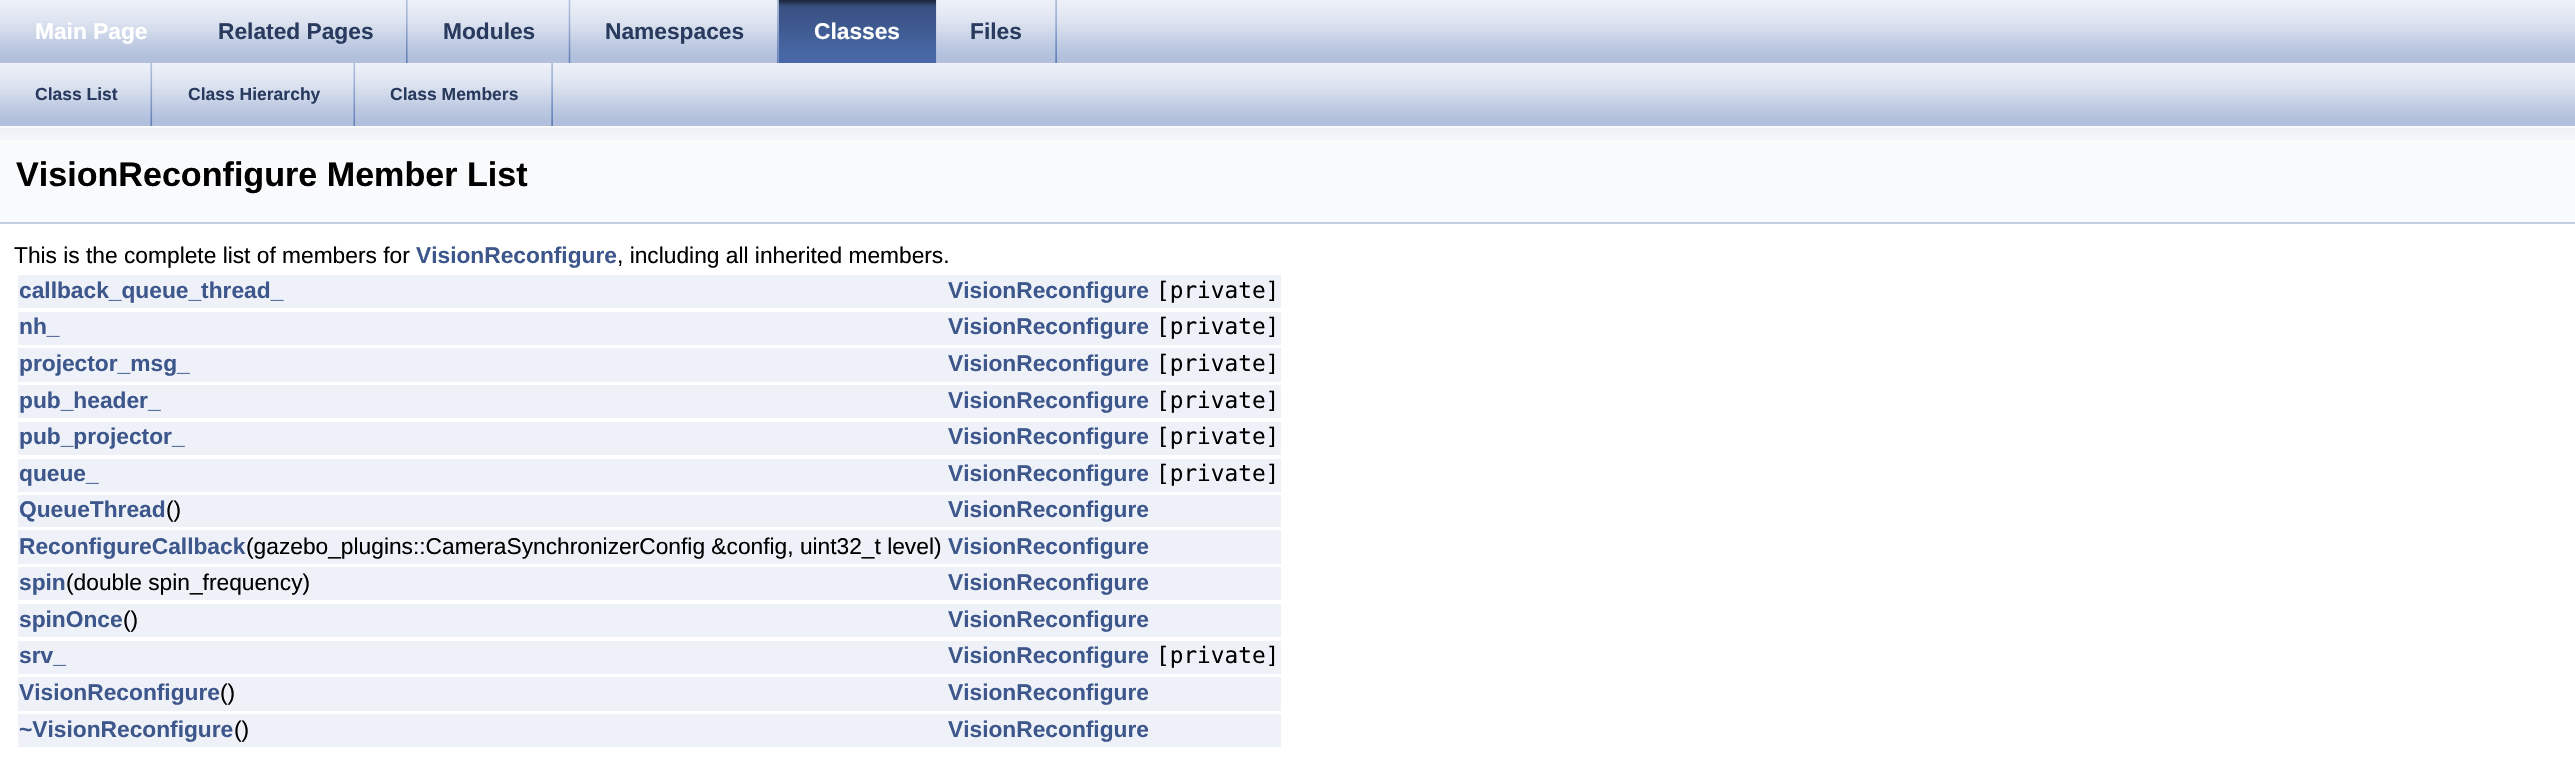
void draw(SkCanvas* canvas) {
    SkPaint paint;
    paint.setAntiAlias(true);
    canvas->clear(0xFFFFFFFF);
    canvas->drawImageRect(SkImages::DeferredFromEncodedData(SkData::MakeFromFileName("img1.png")), SkRect::MakeXYWH(0, 0, 2575, 63), SkSamplingOptions());
    SkFont font1(fontMgr->matchFamilyStyle("Liberation Sans", SkFontStyle::Bold()), 22.75f);
    font1.setSubpixel(true);
    paint.setColor(0xFFFFFFFF);
    canvas->drawString("Main Page", 35, 39, font1, paint);
    canvas->drawImageRect(SkImages::DeferredFromEncodedData(SkData::MakeFromFileName("img2.png")), SkRect::MakeXYWH(406, 0, 2, 63), SkSamplingOptions());
    paint.setColor(0xFF283A5D);
    canvas->drawString("Related Pages", 218, 39, font1, paint);
    canvas->drawImageRect(SkImages::DeferredFromEncodedData(SkData::MakeFromFileName("img3.png")), SkRect::MakeXYWH(407, 0, 1, 63), SkSamplingOptions());
    canvas->drawImageRect(SkImages::DeferredFromEncodedData(SkData::MakeFromFileName("img4.png")), SkRect::MakeXYWH(568, 0, 3, 63), SkSamplingOptions());
    canvas->drawString("Modules", 443, 39, font1, paint);
    canvas->drawImageRect(SkImages::DeferredFromEncodedData(SkData::MakeFromFileName("img5.png")), SkRect::MakeXYWH(570, 0, 1, 63), SkSamplingOptions());
    canvas->drawImageRect(SkImages::DeferredFromEncodedData(SkData::MakeFromFileName("img2.png")), SkRect::MakeXYWH(777, 0, 2, 63), SkSamplingOptions());
    canvas->drawString("Namespaces", 605, 39, font1, paint);
    canvas->drawImageRect(SkImages::DeferredFromEncodedData(SkData::MakeFromFileName("img3.png")), SkRect::MakeXYWH(778, 0, 1, 63), SkSamplingOptions());
    canvas->drawImageRect(SkImages::DeferredFromEncodedData(SkData::MakeFromFileName("img6.png")), SkRect::MakeXYWH(778, 0, 159, 63), SkSamplingOptions());
    paint.setColor(0xFFFFFFFF);
    canvas->drawString("Classes", 814, 39, font1, paint);
    canvas->drawImageRect(SkImages::DeferredFromEncodedData(SkData::MakeFromFileName("img7.png")), SkRect::MakeXYWH(936, 0, 1, 63), SkSamplingOptions());
    canvas->drawImageRect(SkImages::DeferredFromEncodedData(SkData::MakeFromFileName("img8.png")), SkRect::MakeXYWH(1055, 0, 2, 63), SkSamplingOptions());
    paint.setColor(0xFF283A5D);
    canvas->drawString("Files", 970, 39, font1, paint);
    canvas->drawImageRect(SkImages::DeferredFromEncodedData(SkData::MakeFromFileName("img1.png")), SkRect::MakeXYWH(0, 63, 2575, 63), SkSamplingOptions());
    canvas->drawImageRect(SkImages::DeferredFromEncodedData(SkData::MakeFromFileName("img9.png")), SkRect::MakeXYWH(150, 63, 3, 63), SkSamplingOptions());
    SkFont font2(fontMgr->matchFamilyStyle("Liberation Sans", SkFontStyle::Bold()), 17.5f);
    font2.setSubpixel(true);
    canvas->drawString("Class List", 35, 100, font2, paint);
    canvas->drawImageRect(SkImages::DeferredFromEncodedData(SkData::MakeFromFileName("img10.png")), SkRect::MakeXYWH(152, 63, 1, 63), SkSamplingOptions());
    canvas->drawImageRect(SkImages::DeferredFromEncodedData(SkData::MakeFromFileName("img9.png")), SkRect::MakeXYWH(353, 63, 3, 63), SkSamplingOptions());
    canvas->drawString("Class Hierarchy", 188, 100, font2, paint);
    canvas->drawImageRect(SkImages::DeferredFromEncodedData(SkData::MakeFromFileName("img10.png")), SkRect::MakeXYWH(355, 63, 1, 63), SkSamplingOptions());
    canvas->drawImageRect(SkImages::DeferredFromEncodedData(SkData::MakeFromFileName("img8.png")), SkRect::MakeXYWH(551, 63, 2, 63), SkSamplingOptions());
    canvas->drawString("Class Members", 390, 100, font2, paint);
    paint.setColor(0xFFF9FAFC);
    canvas->drawRect(SkRect::MakeXYWH(0, 140, 2575, 82), paint);
    canvas->drawImageRect(SkImages::DeferredFromEncodedData(SkData::MakeFromFileName("img11.png")), SkRect::MakeXYWH(0, 126, 2575, 14), SkSamplingOptions());
    paint.setColor(0xFFC4CFE5);
    canvas->drawRect(SkRect::MakeXYWH(0, 222, 2575, 2), paint);
    SkFont font3(fontMgr->matchFamilyStyle("Liberation Sans", SkFontStyle::Bold()), 34.1f);
    font3.setSubpixel(true);
    paint.setColor(0xFF000000);
    canvas->drawString("VisionReconfigure Member List", 16, 186, font3, paint);
    SkFont font4(fontMgr->matchFamilyStyle("Liberation Sans", SkFontStyle::Normal()), 22.75f);
    font4.setSubpixel(true);
    canvas->drawString("This is the complete list of members for", 14, 263, font4, paint);
    paint.setColor(0xFF3D578C);
    canvas->drawString("VisionReconfigure", 416, 263, font1, paint);
    paint.setColor(0xFF000000);
    canvas->drawString(", including all inherited members.", 617, 263, font4, paint);
    paint.setColor(0xFFEEF1F7);
    canvas->drawRect(SkRect::MakeXYWH(18, 275, 1263, 33), paint);
    paint.setColor(0xFF3D578C);
    canvas->drawString("callback_queue_thread_", 19, 298, font1, paint);
    canvas->drawString("VisionReconfigure", 948, 298, font1, paint);
    SkFont font5(fontMgr->matchFamilyStyle("DejaVu Sans Mono", SkFontStyle::Normal()), 22.75f);
    font5.setSubpixel(true);
    paint.setColor(0xFF000000);
    canvas->drawString("[private]", 1156, 298, font5, paint);
    paint.setColor(0xFFEEF1F7);
    canvas->drawRect(SkRect::MakeXYWH(18, 312, 1263, 33), paint);
    paint.setColor(0xFF3D578C);
    canvas->drawString("nh_", 19, 334, font1, paint);
    canvas->drawString("VisionReconfigure", 948, 334, font1, paint);
    paint.setColor(0xFF000000);
    canvas->drawString("[private]", 1156, 334, font5, paint);
    paint.setColor(0xFFEEF1F7);
    canvas->drawRect(SkRect::MakeXYWH(18, 348, 1263, 34), paint);
    paint.setColor(0xFF3D578C);
    canvas->drawString("projector_msg_", 19, 371, font1, paint);
    canvas->drawString("VisionReconfigure", 948, 371, font1, paint);
    paint.setColor(0xFF000000);
    canvas->drawString("[private]", 1156, 371, font5, paint);
    paint.setColor(0xFFEEF1F7);
    canvas->drawRect(SkRect::MakeXYWH(18, 385, 1263, 33), paint);
    paint.setColor(0xFF3D578C);
    canvas->drawString("pub_header_", 19, 408, font1, paint);
    canvas->drawString("VisionReconfigure", 948, 408, font1, paint);
    paint.setColor(0xFF000000);
    canvas->drawString("[private]", 1156, 408, font5, paint);
    paint.setColor(0xFFEEF1F7);
    canvas->drawRect(SkRect::MakeXYWH(18, 422, 1263, 33), paint);
    paint.setColor(0xFF3D578C);
    canvas->drawString("pub_projector_", 19, 444, font1, paint);
    canvas->drawString("VisionReconfigure", 948, 444, font1, paint);
    paint.setColor(0xFF000000);
    canvas->drawString("[private]", 1156, 444, font5, paint);
    paint.setColor(0xFFEEF1F7);
    canvas->drawRect(SkRect::MakeXYWH(18, 459, 1263, 33), paint);
    paint.setColor(0xFF3D578C);
    canvas->drawString("queue_", 19, 481, font1, paint);
    canvas->drawString("VisionReconfigure", 948, 481, font1, paint);
    paint.setColor(0xFF000000);
    canvas->drawString("[private]", 1156, 481, font5, paint);
    paint.setColor(0xFFEEF1F7);
    canvas->drawRect(SkRect::MakeXYWH(18, 495, 1263, 32), paint);
    paint.setColor(0xFF3D578C);
    canvas->drawString("QueueThread", 19, 517, font1, paint);
    paint.setColor(0xFF000000);
    canvas->drawString("()", 166, 517, font4, paint);
    paint.setColor(0xFF3D578C);
    canvas->drawString("VisionReconfigure", 948, 517, font1, paint);
    paint.setColor(0xFFEEF1F7);
    canvas->drawRect(SkRect::MakeXYWH(18, 530, 1263, 34), paint);
    paint.setColor(0xFF3D578C);
    canvas->drawString("ReconfigureCallback", 19, 554, font1, paint);
    paint.setColor(0xFF000000);
    canvas->drawString("(gazebo_plugins::CameraSynchronizerConfig &config, uint32_t level)", 246, 554, font4, paint);
    paint.setColor(0xFF3D578C);
    canvas->drawString("VisionReconfigure", 948, 554, font1, paint);
    paint.setColor(0xFFEEF1F7);
    canvas->drawRect(SkRect::MakeXYWH(18, 567, 1263, 33), paint);
    paint.setColor(0xFF3D578C);
    canvas->drawString("spin", 19, 590, font1, paint);
    paint.setColor(0xFF000000);
    canvas->drawString("(double spin_frequency)", 66, 590, font4, paint);
    paint.setColor(0xFF3D578C);
    canvas->drawString("VisionReconfigure", 948, 590, font1, paint);
    paint.setColor(0xFFEEF1F7);
    canvas->drawRect(SkRect::MakeXYWH(18, 604, 1263, 33), paint);
    paint.setColor(0xFF3D578C);
    canvas->drawString("spinOnce", 19, 627, font1, paint);
    paint.setColor(0xFF000000);
    canvas->drawString("()", 123, 627, font4, paint);
    paint.setColor(0xFF3D578C);
    canvas->drawString("VisionReconfigure", 948, 627, font1, paint);
    paint.setColor(0xFFEEF1F7);
    canvas->drawRect(SkRect::MakeXYWH(18, 641, 1263, 33), paint);
    paint.setColor(0xFF3D578C);
    canvas->drawString("srv_", 19, 663, font1, paint);
    canvas->drawString("VisionReconfigure", 948, 663, font1, paint);
    paint.setColor(0xFF000000);
    canvas->drawString("[private]", 1156, 663, font5, paint);
    paint.setColor(0xFFEEF1F7);
    canvas->drawRect(SkRect::MakeXYWH(18, 677, 1263, 34), paint);
    paint.setColor(0xFF3D578C);
    canvas->drawString("VisionReconfigure", 19, 700, font1, paint);
    paint.setColor(0xFF000000);
    canvas->drawString("()", 220, 700, font4, paint);
    paint.setColor(0xFF3D578C);
    canvas->drawString("VisionReconfigure", 948, 700, font1, paint);
    paint.setColor(0xFFEEF1F7);
    canvas->drawRect(SkRect::MakeXYWH(18, 714, 1263, 33), paint);
    paint.setColor(0xFF3D578C);
    canvas->drawString("~VisionReconfigure", 19, 737, font1, paint);
    paint.setColor(0xFF000000);
    canvas->drawString("()", 234, 737, font4, paint);
    paint.setColor(0xFF3D578C);
    canvas->drawString("VisionReconfigure", 948, 737, font1, paint);
}
